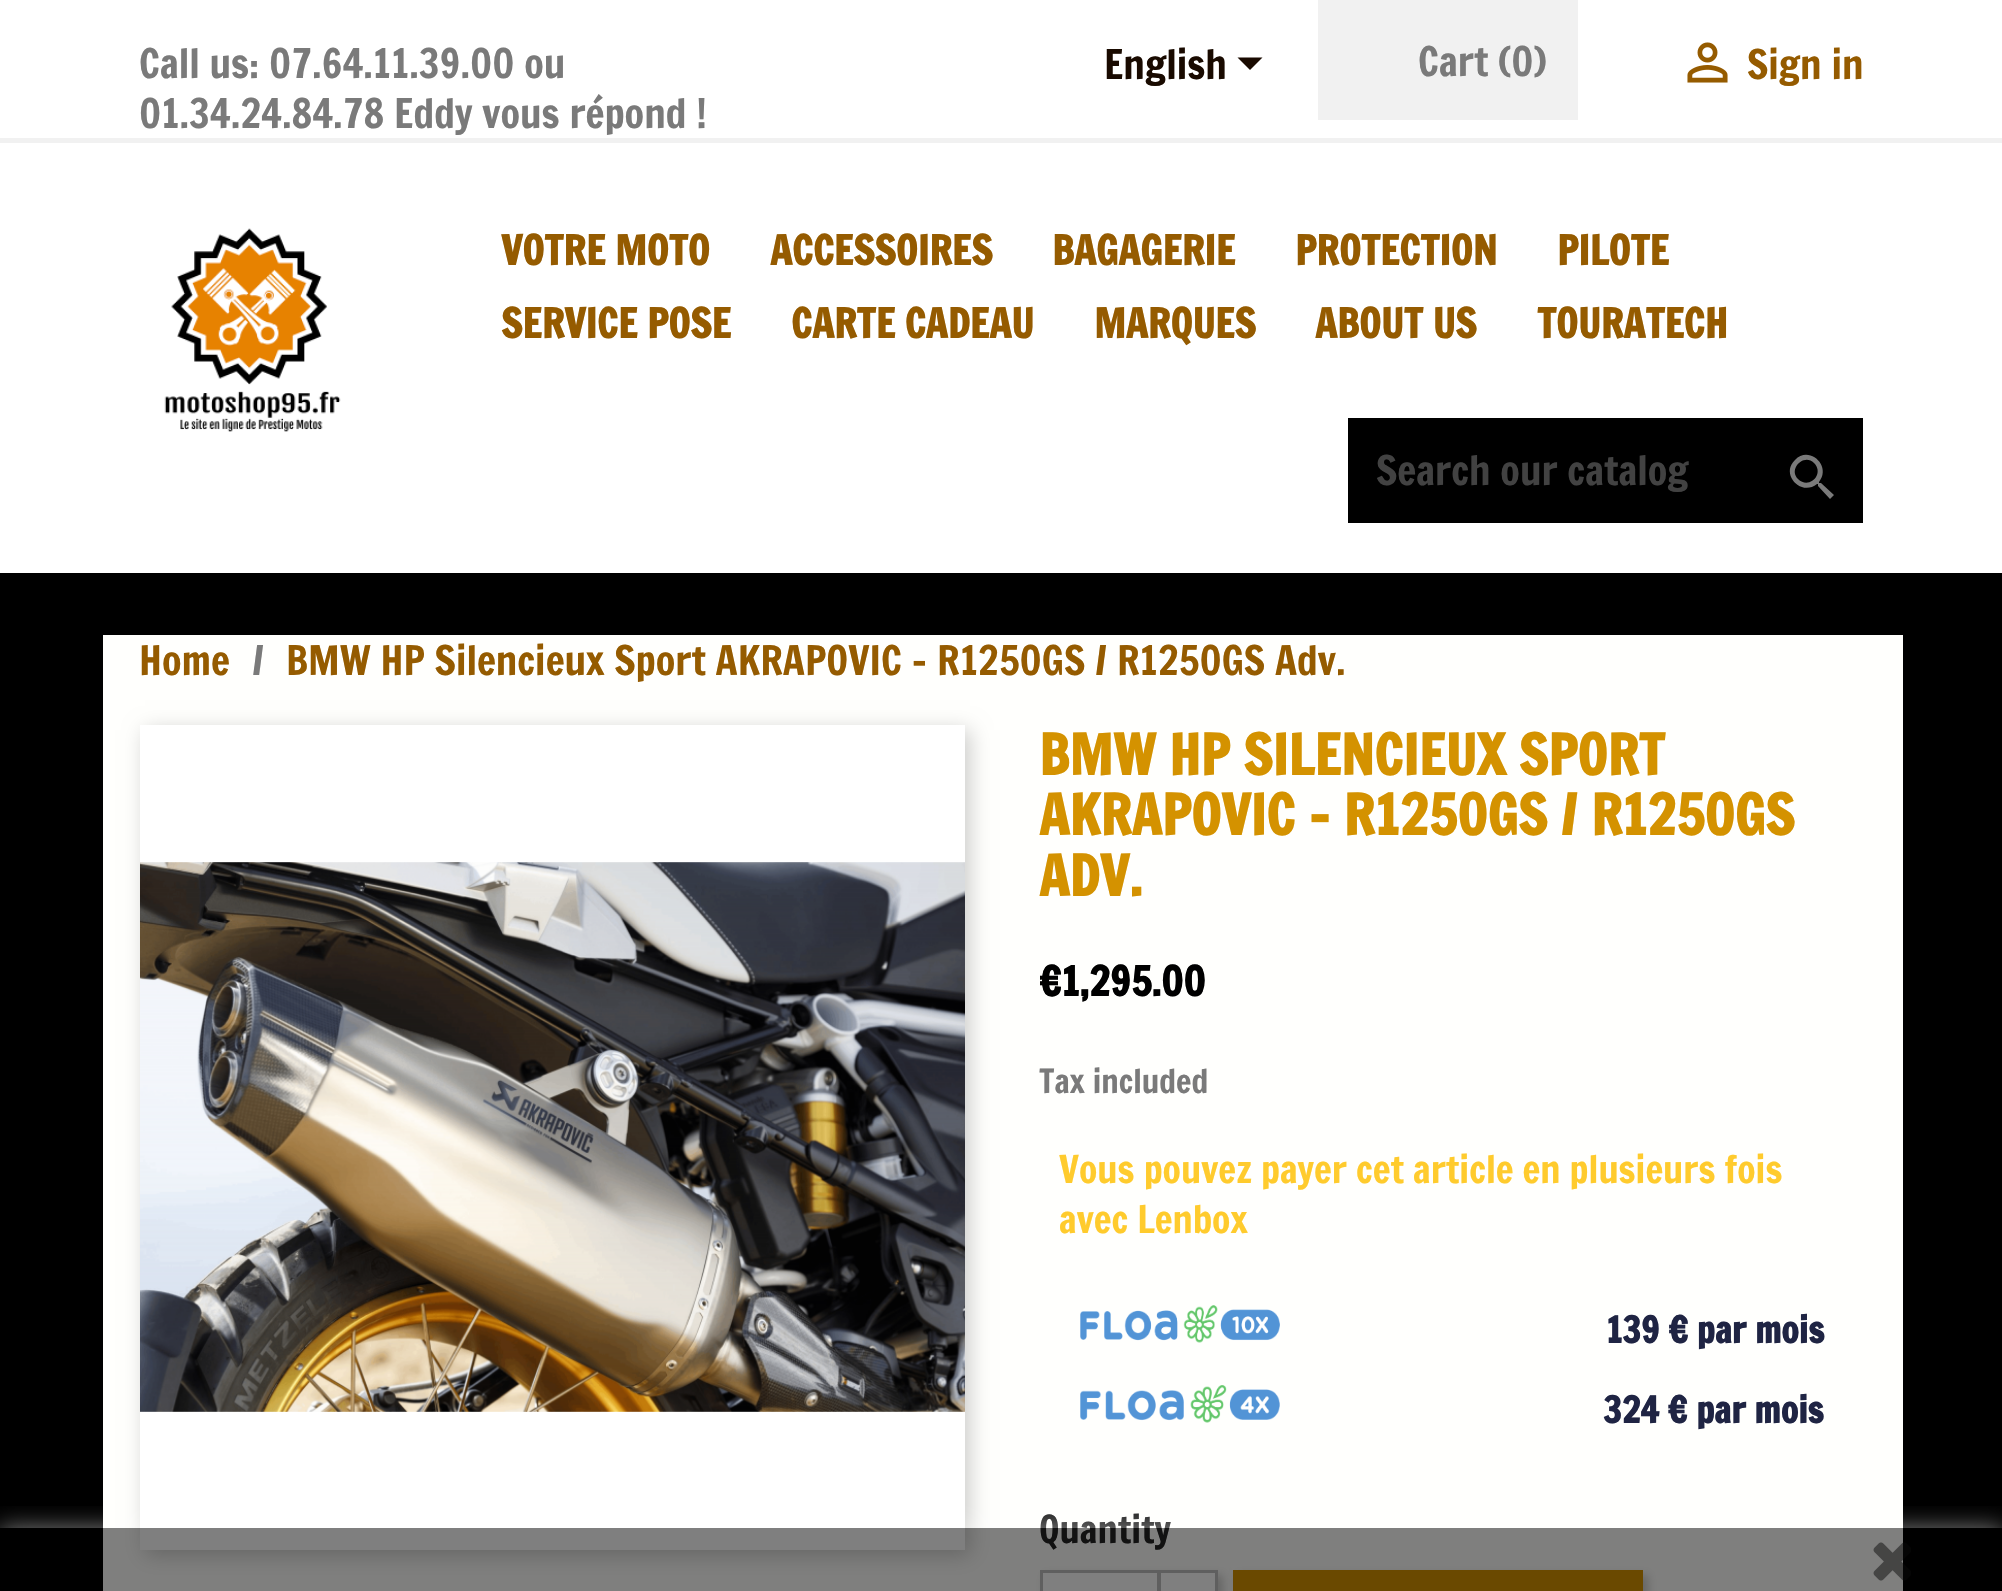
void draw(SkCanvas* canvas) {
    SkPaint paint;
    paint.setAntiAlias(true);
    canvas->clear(0xFFFFFFFF);
    paint.setColor(0xFFF1F1F1);
    canvas->drawRect(SkRect::MakeXYWH(0, 138, 2002, 5), paint);
    SkFont font1(fontMgr->matchFamilyStyle("Francois One", SkFontStyle::Normal()), 40);
    font1.setSubpixel(true);
    paint.setColor(0xFF7A7A7A);
    canvas->drawString("Call us: 07.64.11.39.00 ou", 139, 78, font1, paint);
    canvas->drawString("01.34.24.84.78 Eddy vous répond !", 139, 128, font1, paint);
    paint.setColor(0xFF190A00);
    canvas->drawString("English", 1104, 79, font1, paint);
    canvas->drawPath(SkPathBuilder().moveTo(1237.5f, 57.5f).lineTo(1262.5f, 57.5f).lineTo(1250, 70).close().detach(), paint);
    paint.setColor(0xFFF1F1F1);
    canvas->drawRect(SkRect::MakeXYWH(1318, 0, 260, 120), paint);
    paint.setColor(0xFF7A7A7A);
    canvas->drawString("Cart (0)", 1418, 76, font1, paint);
    canvas->drawImageRect(SkImages::DeferredFromEncodedData(SkData::MakeFromFileName("img1.png")), SkRect::MakeXYWH(1687, 42, 41, 41), SkSamplingOptions());
    paint.setColor(0xFF955B00);
    canvas->drawString("Sign in", 1747, 79, font1, paint);
    canvas->drawImageRect(SkImages::DeferredFromEncodedData(SkData::MakeFromFileName("img2.png")), SkRect::MakeXYWH(164, 228, 177, 204), SkSamplingOptions());
    SkFont font2(fontMgr->matchFamilyStyle("Francois One", SkFontStyle::Bold()), 40);
    font2.setSubpixel(true);
    canvas->drawString("VOTRE MOTO", 501, 265, font2, paint);
    canvas->drawString("ACCESSOIRES", 770, 265, font2, paint);
    canvas->drawString("BAGAGERIE", 1052, 265, font2, paint);
    canvas->drawString("PROTECTION", 1295, 265, font2, paint);
    canvas->drawString("PILOTE", 1557, 265, font2, paint);
    canvas->drawString("SERVICE POSE", 501, 338, font2, paint);
    canvas->drawString("CARTE CADEAU", 791, 338, font2, paint);
    canvas->drawString("MARQUES", 1094, 338, font2, paint);
    canvas->drawString("ABOUT US", 1315, 338, font2, paint);
    canvas->drawString("TOURATECH", 1537, 338, font2, paint);
    paint.setColor(0xFF000000);
    canvas->drawRect(SkRect::MakeXYWH(1348, 418, 515, 105), paint);
    paint.setColor(0xFF424242);
    canvas->drawString("Search our catalog", 1376, 485, font1, paint);
    paint.setColor(0xFF7A7A7A);
    canvas->drawPath(SkPathBuilder().moveTo(1798, 479).cubicTo(1809, 490, 1825, 474, 1814, 463).cubicTo(1804, 453, 1788, 469, 1798, 479).close().moveTo(1821, 483).lineTo(1834, 495).lineTo(1830, 499).lineTo(1818, 486).lineTo(1818, 484).lineTo(1817, 484).cubicTo(1801, 497, 1780, 474, 1795, 460).cubicTo(1809, 445, 1832, 466, 1819, 482).lineTo(1819, 483).close().detach(), paint);
    paint.setColor(0xFF000000);
    canvas->drawRect(SkRect::MakeXYWH(0, 573, 2002, 1018), paint);
    paint.setColor(0xFFFFFFFD);
    canvas->drawRect(SkRect::MakeXYWH(103, 635, 1800, 956), paint);
    paint.setColor(0xFF955B00);
    canvas->drawString("Home", 139, 675, font1, paint);
    paint.setColor(0xFF7A7A7A);
    canvas->drawString("/", 252, 675, font1, paint);
    paint.setColor(0xFF955B00);
    canvas->drawString("BMW HP Silencieux Sport AKRAPOVIC - R1250GS / R1250GS Adv.", 286, 675, font1, paint);
    paint.setColor(0x33000000);
    paint.setMaskFilter(SkMaskFilter::MakeBlur(kNormal_SkBlurStyle, 10));
    canvas->drawRect(SkRect::MakeXYWH(145, 730, 825, 825), paint);
    paint.setMaskFilter(nullptr);
    paint.setColor(0xFFFFFFFF);
    canvas->drawRect(SkRect::MakeXYWH(140, 725, 825, 825), paint);
    canvas->drawImageRect(SkImages::DeferredFromEncodedData(SkData::MakeFromFileName("img3.png")), SkRect::MakeXYWH(140, 862, 825, 550), SkSamplingOptions());
    SkFont font3(fontMgr->matchFamilyStyle("Francois One", SkFontStyle::Bold()), 55);
    font3.setSubpixel(true);
    paint.setColor(0xFFD49200);
    canvas->drawString("BMW HP SILENCIEUX SPORT", 1039, 775, font3, paint);
    canvas->drawString("AKRAPOVIC - R1250GS / R1250GS", 1039, 835, font3, paint);
    canvas->drawString("ADV.", 1039, 896, font3, paint);
    paint.setColor(0xFF000000);
    canvas->drawString("€1,295.00", 1039, 996, font2, paint);
    SkFont font4(fontMgr->matchFamilyStyle("Francois One", SkFontStyle::Normal()), 32.5f);
    font4.setSubpixel(true);
    paint.setColor(0xFF7A7A7A);
    canvas->drawString("Tax included", 1039, 1093, font4, paint);
    SkFont font5(fontMgr->matchFamilyStyle("Francois One", SkFontStyle::Normal()), 37.5f);
    font5.setSubpixel(true);
    paint.setColor(0xFFFFCB2D);
    canvas->drawString("Vous pouvez payer cet article en plusieurs fois", 1059, 1183, font5, paint);
    canvas->drawString("avec Lenbox", 1059, 1233, font5, paint);
    canvas->drawImageRect(SkImages::DeferredFromEncodedData(SkData::MakeFromFileName("img4.png")), SkRect::MakeXYWH(1080, 1305, 200, 38), SkSamplingOptions());
    SkFont font6(fontMgr->matchFamilyStyle("Francois One", SkFontStyle::Bold()), 35.75f);
    font6.setSubpixel(true);
    paint.setColor(0xFF1F2443);
    canvas->drawString("139 € par mois", 1606, 1343, font6, paint);
    canvas->drawImageRect(SkImages::DeferredFromEncodedData(SkData::MakeFromFileName("img5.png")), SkRect::MakeXYWH(1080, 1385, 200, 38), SkSamplingOptions());
    canvas->drawString("324 € par mois", 1603, 1423, font6, paint);
    paint.setColor(0xFF232323);
    canvas->drawString("Quantity", 1039, 1543, font5, paint);
    paint.setColor(0x33000000);
    paint.setMaskFilter(SkMaskFilter::MakeBlur(kNormal_SkBlurStyle, 5));
    canvas->drawRect(SkRect::MakeXYWH(1238, 1575, 410, 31), paint);
    paint.setMaskFilter(nullptr);
    paint.setColor(0xFFD49200);
    canvas->drawRect(SkRect::MakeXYWH(1233, 1570, 410, 21), paint);
    paint.setColor(0x33000000);
    paint.setMaskFilter(SkMaskFilter::MakeBlur(kNormal_SkBlurStyle, 5));
    canvas->drawRect(SkRect::MakeXYWH(1045, 1575, 178, 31), paint);
    paint.setMaskFilter(nullptr);
    paint.setColor(0xFFFFFFFF);
    canvas->drawRect(SkRect::MakeXYWH(1159.5f, 1571.5f, 57, 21), paint);
    paint.setStyle(SkPaint::kStroke_Style);
    paint.setStrokeWidth(3);
    paint.setColor(0xFFBFBFBF);
    canvas->drawRect(SkRect::MakeXYWH(1159.5f, 1571.5f, 57, 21), paint);
    paint.setStyle(SkPaint::kFill_Style);
    paint.setColor(0xFFFFFFFF);
    canvas->drawRect(SkRect::MakeXYWH(1041.5f, 1571.5f, 117, 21), paint);
    paint.setStyle(SkPaint::kStroke_Style);
    paint.setColor(0xFFBFBFBF);
    canvas->drawRect(SkRect::MakeXYWH(1041.5f, 1571.5f, 117, 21), paint);
    canvas->save();
    canvas->clipRect(SkRect::MakeXYWH(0, 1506, 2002, 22));
    paint.setStyle(SkPaint::kFill_Style);
    paint.setColor(0x80FFFFFF);
    paint.setMaskFilter(SkMaskFilter::MakeBlur(kNormal_SkBlurStyle, 12.5f));
    canvas->drawRect(SkRect::MakeXYWH(0, 1528, 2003, 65), paint);
    paint.setMaskFilter(nullptr);
    canvas->restore();
    paint.setColor(0x80000000);
    canvas->drawRect(SkRect::MakeXYWH(103, 1528, 1800, 63), paint);
    canvas->drawImageRect(SkImages::DeferredFromEncodedData(SkData::MakeFromFileName("img6.png")), SkRect::MakeXYWH(1873, 1542, 38, 39), SkSamplingOptions());
}
